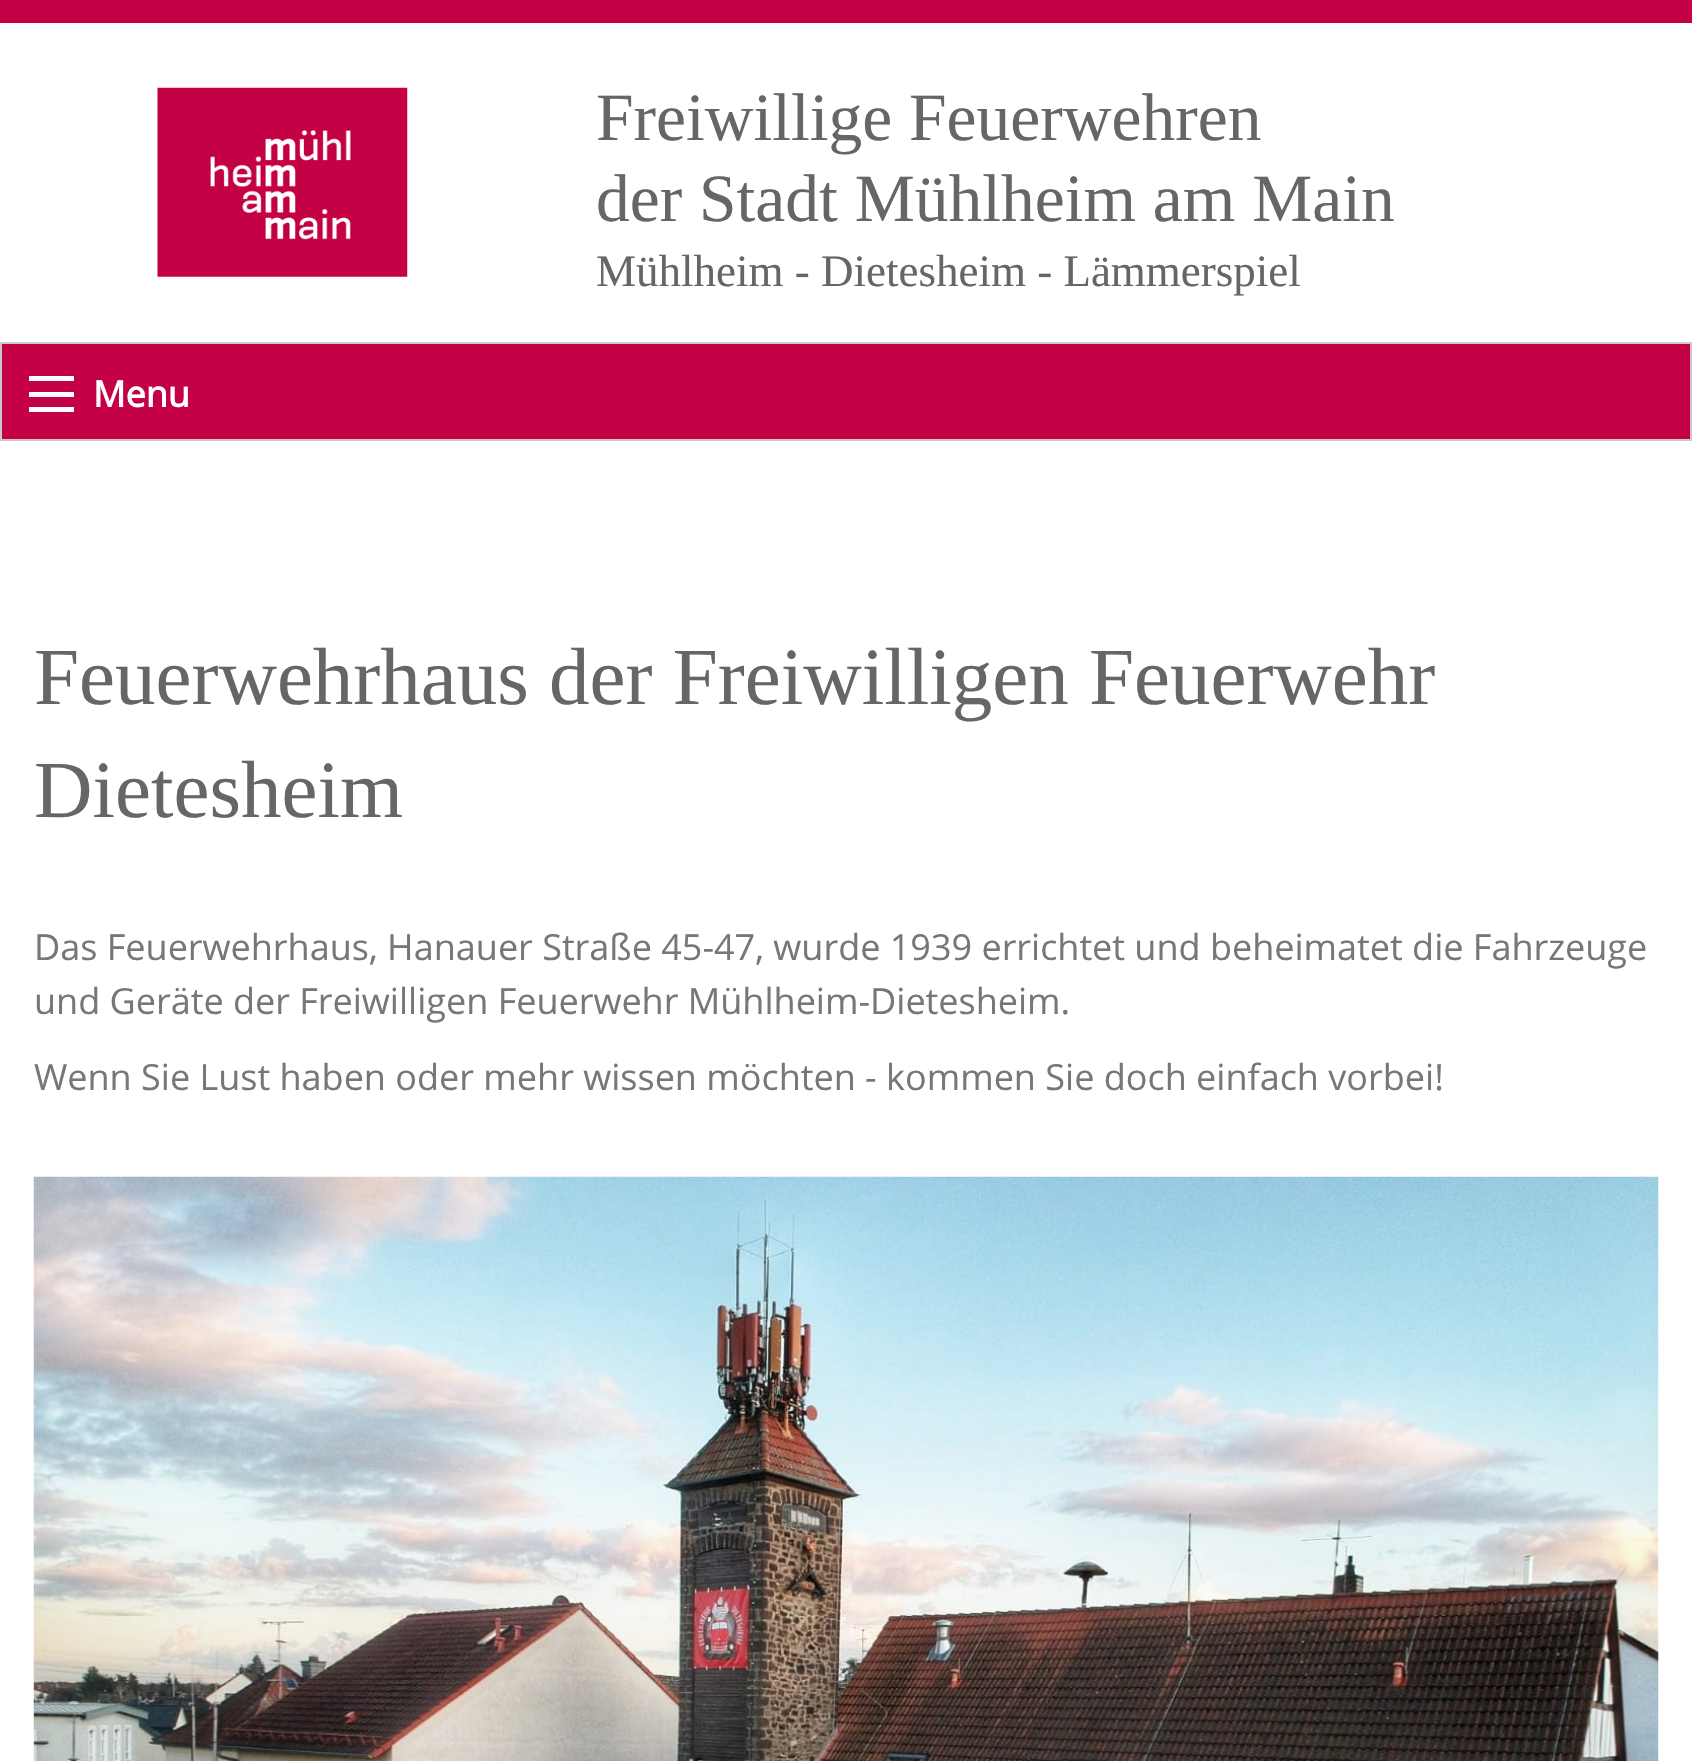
void draw(SkCanvas* canvas) {
    SkPaint paint;
    paint.setAntiAlias(true);
    canvas->clear(0xFFFFFFFF);
    paint.setColor(0xFFC40046);
    canvas->drawRect(SkRect::MakeXYWH(0, 0, 1692, 23), paint);
    canvas->drawImageRect(SkImages::DeferredFromEncodedData(SkData::MakeFromFileName("img1.png")), SkRect::MakeXYWH(157, 87, 251, 190), SkSamplingOptions());
    SkFont font1(fontMgr->matchFamilyStyle("Liberation Serif", SkFontStyle::Normal()), 67.5f);
    font1.setSubpixel(true);
    paint.setColor(0xFF666666);
    canvas->drawString("Freiwillige Feuerwehren", 596, 140, font1, paint);
    canvas->drawString("der Stadt Mühlheim am Main", 596, 221, font1, paint);
    SkFont font2(fontMgr->matchFamilyStyle("Liberation Serif", SkFontStyle::Normal()), 45);
    font2.setSubpixel(true);
    canvas->drawString("Mühlheim - Dietesheim - Lämmerspiel", 596, 286, font2, paint);
    paint.setStyle(SkPaint::kStroke_Style);
    paint.setStrokeWidth(2);
    paint.setColor(0xFFCACACA);
    canvas->drawRect(SkRect::MakeXYWH(1, 343, 1690, 97), paint);
    paint.setStyle(SkPaint::kFill_Style);
    paint.setColor(0xFFC40046);
    canvas->drawRect(SkRect::MakeXYWH(2, 344, 1688, 95), paint);
    paint.setColor(0xFFFEFEFE);
    canvas->drawRect(SkRect::MakeXYWH(29, 407, 45, 5), paint);
    canvas->drawRect(SkRect::MakeXYWH(29, 392, 45, 5), paint);
    canvas->drawRect(SkRect::MakeXYWH(29, 376, 45, 5), paint);
    SkFont font3(fontMgr->matchFamilyStyle("Open Sans", SkFontStyle::Bold()), 36);
    font3.setSubpixel(true);
    paint.setColor(0xFFFFFFFF);
    canvas->drawString("Menu", 93, 407, font3, paint);
    SkFont font4(fontMgr->matchFamilyStyle("Liberation Serif", SkFontStyle::Normal()), 81);
    font4.setSubpixel(true);
    paint.setColor(0xFF666666);
    canvas->drawString("Feuerwehrhaus der Freiwilligen Feuerwehr", 34, 704, font4, paint);
    canvas->drawString("Dietesheim", 34, 817, font4, paint);
    SkFont font5(fontMgr->matchFamilyStyle("Open Sans", SkFontStyle::Normal()), 36);
    font5.setSubpixel(true);
    paint.setColor(0xFF777777);
    canvas->drawString("Das Feuerwehrhaus, Hanauer Straße 45-47, wurde 1939 errichtet und beheimatet die Fahrzeuge", 34, 960, font5, paint);
    canvas->drawString("und Geräte der Freiwilligen Feuerwehr Mühlheim-Dietesheim.", 34, 1014, font5, paint);
    canvas->drawString("Wenn Sie Lust haben oder mehr wissen möchten - kommen Sie doch einfach vorbei!", 34, 1090, font5, paint);
    canvas->drawImageRect(SkImages::DeferredFromEncodedData(SkData::MakeFromFileName("img2.png")), SkRect::MakeXYWH(33, 1176, 1626, 585), SkSamplingOptions());
}
